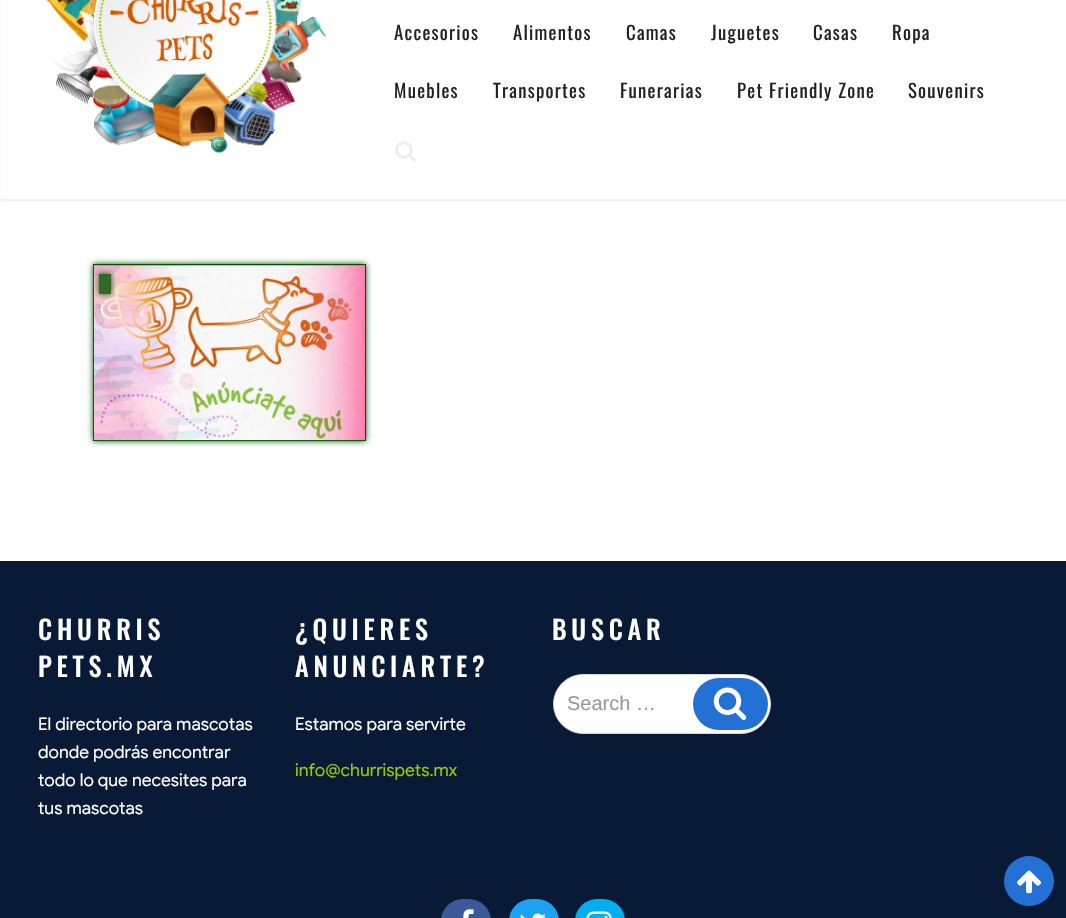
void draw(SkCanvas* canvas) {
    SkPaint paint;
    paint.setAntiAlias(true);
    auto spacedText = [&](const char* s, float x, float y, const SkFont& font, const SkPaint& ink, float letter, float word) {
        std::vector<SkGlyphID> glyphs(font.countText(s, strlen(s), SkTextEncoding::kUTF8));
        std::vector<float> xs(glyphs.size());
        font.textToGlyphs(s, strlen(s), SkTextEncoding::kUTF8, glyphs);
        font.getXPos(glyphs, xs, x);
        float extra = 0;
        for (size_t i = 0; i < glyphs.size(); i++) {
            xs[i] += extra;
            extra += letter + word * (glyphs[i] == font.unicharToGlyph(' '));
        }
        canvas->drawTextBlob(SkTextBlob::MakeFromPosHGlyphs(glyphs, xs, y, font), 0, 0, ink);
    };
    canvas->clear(0xFFFFFFFF);
    paint.setColor(0xFFF0F0F0);
    paint.setMaskFilter(SkMaskFilter::MakeBlur(kNormal_SkBlurStyle, 0.5f));
    canvas->drawRect(SkRect::MakeXYWH(1, -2, 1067, 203), paint);
    paint.setMaskFilter(nullptr);
    paint.setColor(0xFFFFFFFF);
    canvas->drawRect(SkRect::MakeXYWH(1, 0, 1065, 199), paint);
    canvas->drawImageRect(SkImages::DeferredFromEncodedData(SkData::MakeFromFileName("img1.png")), SkRect::MakeXYWH(45, 0, 282, 153), SkSamplingOptions());
    SkFont font1(fontMgr->matchFamilyStyle("Oswald", SkFontStyle::Normal()), 18.75f);
    font1.setSubpixel(true);
    paint.setColor(0xFF222222);
    spacedText("Accesorios", 394, 40, font1, paint, 1.25f, 0);
    spacedText("Alimentos", 513, 40, font1, paint, 1.25f, 0);
    spacedText("Camas", 626, 40, font1, paint, 1.25f, 0);
    spacedText("Juguetes", 711, 40, font1, paint, 1.25f, 0);
    spacedText("Casas", 813, 40, font1, paint, 1.25f, 0);
    spacedText("Ropa", 892, 40, font1, paint, 1.25f, 0);
    spacedText("Muebles", 394, 98, font1, paint, 1.25f, 0);
    spacedText("Transportes", 493, 98, font1, paint, 1.25f, 0);
    spacedText("Funerarias", 620, 98, font1, paint, 1.25f, 0);
    spacedText("Pet Friendly Zone", 737, 98, font1, paint, 1.25f, 0);
    spacedText("Souvenirs", 908, 98, font1, paint, 1.25f, 0);
    canvas->drawImageRect(SkImages::DeferredFromEncodedData(SkData::MakeFromFileName("img2.png")), SkRect::MakeXYWH(395, 141, 21, 21), SkSamplingOptions());
    paint.setColor(0xFF005200);
    paint.setMaskFilter(SkMaskFilter::MakeBlur(kNormal_SkBlurStyle, 3));
    canvas->drawRect(SkRect::MakeXYWH(93, 264, 273, 177), paint);
    paint.setMaskFilter(nullptr);
    paint.setStyle(SkPaint::kStroke_Style);
    paint.setStrokeWidth(1);
    canvas->drawRect(SkRect::MakeXYWH(93.5f, 264.5f, 272, 176), paint);
    canvas->drawImageRect(SkImages::DeferredFromEncodedData(SkData::MakeFromFileName("img3.png")), SkRect::MakeXYWH(93, 265, 272, 176), SkSamplingOptions());
    canvas->save();
    canvas->clipPath(SkPathBuilder(SkPathFillType::kEvenOdd).moveTo(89, 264).lineTo(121, 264).lineTo(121, 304).lineTo(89, 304).close().moveTo(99, 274).lineTo(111, 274).lineTo(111, 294).lineTo(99, 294).close().detach(), true);
    paint.setStyle(SkPaint::kFill_Style);
    paint.setMaskFilter(SkMaskFilter::MakeBlur(kNormal_SkBlurStyle, 3));
    canvas->drawRect(SkRect::MakeXYWH(99, 274, 12, 20), paint);
    paint.setMaskFilter(nullptr);
    canvas->restore();
    paint.setColor(0xCC005200);
    canvas->drawRect(SkRect::MakeXYWH(99, 274, 12, 20), paint);
    paint.setColor(0xFF081A35);
    canvas->drawRect(SkRect::MakeXYWH(0, 561, 1066, 357), paint);
    SkFont font2(fontMgr->matchFamilyStyle("Oswald", SkFontStyle(500, SkFontStyle::kNormal_Width, SkFontStyle::kUpright_Slant)), 26.25f);
    font2.setSubpixel(true);
    paint.setColor(0xFFFFFFFF);
    spacedText("CHURRIS", 38, 640, font2, paint, 4.75f, 0);
    spacedText("PETS.MX", 38, 677, font2, paint, 4.75f, 0);
    SkFont font3(fontMgr->matchFamilyStyle("Google Sans", SkFontStyle::Normal()), 17.5f);
    font3.setSubpixel(true);
    canvas->drawString("El directorio para mascotas", 38, 730, font3, paint);
    canvas->drawString("donde podrás encontrar", 38, 758, font3, paint);
    canvas->drawString("todo lo que necesites para", 38, 786, font3, paint);
    canvas->drawString("tus mascotas", 38, 814, font3, paint);
    spacedText("¿QUIERES", 295, 640, font2, paint, 4.75f, 0);
    spacedText("ANUNCIARTE?", 295, 677, font2, paint, 4.75f, 0);
    canvas->drawString("Estamos para servirte", 295, 730, font3, paint);
    paint.setColor(0xFF99CC00);
    canvas->drawString("info@churrispets.mx", 295, 776, font3, paint);
    paint.setColor(0xFFFFFFFF);
    spacedText("BUSCAR", 552, 640, font2, paint, 4.75f, 0);
    canvas->drawRoundRect(SkRect::MakeXYWH(553.5f, 674.5f, 217, 59), 29.5f, 29.5f, paint);
    paint.setStyle(SkPaint::kStroke_Style);
    paint.setColor(0xFFD7D7D7);
    canvas->drawRoundRect(SkRect::MakeXYWH(553.5f, 674.5f, 217, 59), 29.5f, 29.5f, paint);
    SkFont font4(fontMgr->matchFamilyStyle("Liberation Sans", SkFontStyle::Normal()), 20);
    font4.setSubpixel(true);
    paint.setStyle(SkPaint::kFill_Style);
    paint.setColor(0xFF999999);
    canvas->drawString("Search …", 567, 710, font4, paint);
    paint.setColor(0xFF2371D5);
    canvas->drawRoundRect(SkRect::MakeXYWH(693, 678, 75, 52), 26, 26, paint);
    canvas->drawImageRect(SkImages::DeferredFromEncodedData(SkData::MakeFromFileName("img4.png")), SkRect::MakeXYWH(713, 687, 34, 33), SkSamplingOptions());
    paint.setColor(0xFF3B5998);
    canvas->drawRoundRect(SkRect::MakeXYWH(441, 899, 50, 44), 25, 25, paint);
    canvas->drawImageRect(SkImages::DeferredFromEncodedData(SkData::MakeFromFileName("img5.png")), SkRect::MakeXYWH(463, 909, 11, 9), SkSamplingOptions());
    paint.setColor(0xFF1DA1F2);
    canvas->drawRoundRect(SkRect::MakeXYWH(509, 899, 50, 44), 25, 25, paint);
    canvas->drawImageRect(SkImages::DeferredFromEncodedData(SkData::MakeFromFileName("img6.png")), SkRect::MakeXYWH(520, 913, 26, 5), SkSamplingOptions());
    paint.setColor(0xFF00AFF0);
    canvas->drawRoundRect(SkRect::MakeXYWH(575, 899, 50, 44), 25, 25, paint);
    canvas->drawImageRect(SkImages::DeferredFromEncodedData(SkData::MakeFromFileName("img7.png")), SkRect::MakeXYWH(586, 911, 26, 7), SkSamplingOptions());
    paint.setColor(0xFF2371D5);
    canvas->drawCircle(1029, 881, 25, paint);
    canvas->drawImageRect(SkImages::DeferredFromEncodedData(SkData::MakeFromFileName("img8.png")), SkRect::MakeXYWH(1017, 870, 24, 24), SkSamplingOptions());
}
